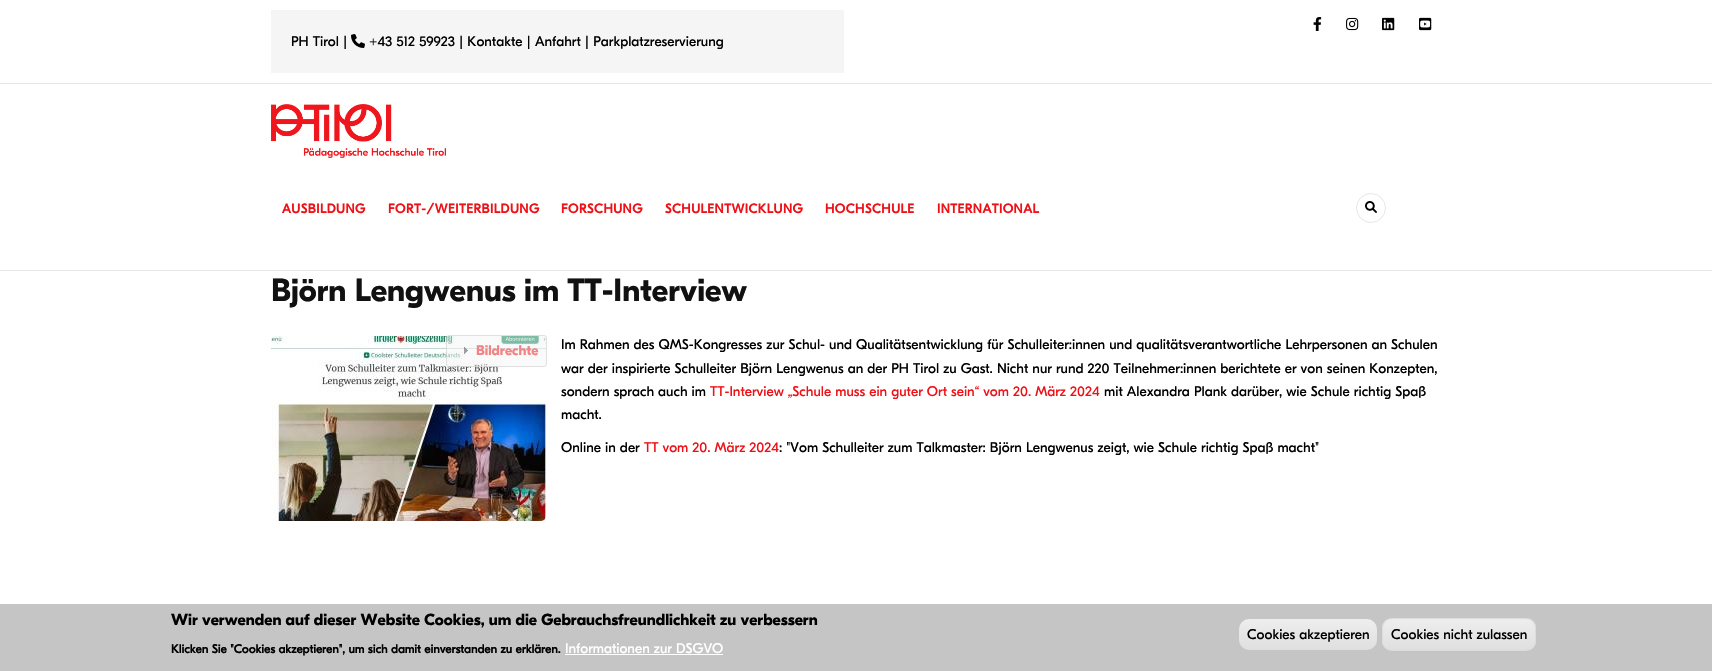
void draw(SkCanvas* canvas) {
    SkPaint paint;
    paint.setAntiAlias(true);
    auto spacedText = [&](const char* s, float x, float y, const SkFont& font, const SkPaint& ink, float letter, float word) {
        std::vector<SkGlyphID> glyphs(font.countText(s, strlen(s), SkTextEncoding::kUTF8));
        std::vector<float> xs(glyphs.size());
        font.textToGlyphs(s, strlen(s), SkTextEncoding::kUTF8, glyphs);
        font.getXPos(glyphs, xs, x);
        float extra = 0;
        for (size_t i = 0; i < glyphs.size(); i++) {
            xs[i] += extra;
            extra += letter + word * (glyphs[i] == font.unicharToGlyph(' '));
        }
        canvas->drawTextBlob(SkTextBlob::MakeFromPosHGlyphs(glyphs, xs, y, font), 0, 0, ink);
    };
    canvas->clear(0xFFFFFFFF);
    paint.setColor(0xFFE6E6E6);
    canvas->drawRect(SkRect::MakeXYWH(0, 83, 1712, 1), paint);
    canvas->drawImageRect(SkImages::DeferredFromEncodedData(SkData::MakeFromFileName("img1.png")), SkRect::MakeXYWH(1313, 17, 9, 14), SkSamplingOptions());
    canvas->drawImageRect(SkImages::DeferredFromEncodedData(SkData::MakeFromFileName("img2.png")), SkRect::MakeXYWH(1346, 17, 13, 14), SkSamplingOptions());
    canvas->drawImageRect(SkImages::DeferredFromEncodedData(SkData::MakeFromFileName("img3.png")), SkRect::MakeXYWH(1382, 17, 13, 14), SkSamplingOptions());
    canvas->drawImageRect(SkImages::DeferredFromEncodedData(SkData::MakeFromFileName("img4.png")), SkRect::MakeXYWH(1419, 17, 13, 14), SkSamplingOptions());
    paint.setColor(0xFFF5F5F5);
    canvas->drawRect(SkRect::MakeXYWH(271, 10, 573, 63), paint);
    SkFont font1(fontMgr->matchFamilyStyle("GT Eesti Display", SkFontStyle::Normal()), 14);
    font1.setSubpixel(true);
    paint.setColor(0xFF000000);
    canvas->drawString("PH Tirol |", 291, 46, font1, paint);
    canvas->drawImageRect(SkImages::DeferredFromEncodedData(SkData::MakeFromFileName("img5.png")), SkRect::MakeXYWH(351, 34, 14, 14), SkSamplingOptions());
    canvas->drawString("+43 512 59923 | Kontakte | Anfahrt | Parkplatzreservierung", 369, 46, font1, paint);
    paint.setColor(0xFFE6E6E6);
    canvas->drawRect(SkRect::MakeXYWH(0, 270, 1712, 1), paint);
    canvas->drawImageRect(SkImages::DeferredFromEncodedData(SkData::MakeFromFileName("img6.png")), SkRect::MakeXYWH(271, 104, 175, 54), SkSamplingOptions());
    SkFont font2(fontMgr->matchFamilyStyle("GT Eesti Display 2", SkFontStyle::Bold()), 13);
    font2.setSubpixel(true);
    paint.setColor(0xFFEE1117);
    spacedText("AUSBILDUNG", 282, 213, font2, paint, 0.5f, 0);
    spacedText("FORT-/WEITERBILDUNG", 388, 213, font2, paint, 0.5f, 0);
    spacedText("FORSCHUNG", 561, 213, font2, paint, 0.5f, 0);
    spacedText("SCHULENTWICKLUNG", 665, 213, font2, paint, 0.5f, 0);
    spacedText("HOCHSCHULE", 825, 213, font2, paint, 0.5f, 0);
    spacedText("INTERNATIONAL", 937, 213, font2, paint, 0.5f, 0);
    paint.setStyle(SkPaint::kStroke_Style);
    paint.setStrokeWidth(1);
    paint.setColor(0xFFE6E6E6);
    canvas->drawCircle(1371, 208, 14.5f, paint);
    canvas->drawImageRect(SkImages::DeferredFromEncodedData(SkData::MakeFromFileName("img7.png")), SkRect::MakeXYWH(1365, 201, 12, 12), SkSamplingOptions());
    SkFont font3(fontMgr->matchFamilyStyle("GT Eesti Display", SkFontStyle::Bold()), 32);
    font3.setSubpixel(true);
    paint.setStyle(SkPaint::kFill_Style);
    paint.setColor(0xFF111111);
    canvas->drawString("Björn Lengwenus im TT-Interview", 271, 301, font3, paint);
    canvas->drawImageRect(SkImages::DeferredFromEncodedData(SkData::MakeFromFileName("img8.png")), SkRect::MakeXYWH(271, 336, 275, 185), SkSamplingOptions());
    paint.setColor(0x80F6F6F6);
    canvas->drawRoundRect(SkRect::MakeXYWH(446, 335, 101, 32), 3, 3, paint);
    paint.setStyle(SkPaint::kStroke_Style);
    paint.setColor(0x80C5C5C5);
    canvas->drawRoundRect(SkRect::MakeXYWH(446.5f, 335.5f, 100, 31), 2.5f, 2.5f, paint);
    canvas->drawImageRect(SkImages::DeferredFromEncodedData(SkData::MakeFromFileName("img9.png")), SkRect::MakeXYWH(464, 347, 4, 7), SkSamplingOptions());
    SkFont font4(fontMgr->matchFamilyStyle("GT Eesti Display", SkFontStyle::Bold()), 14);
    font4.setSubpixel(true);
    paint.setStyle(SkPaint::kFill_Style);
    paint.setColor(0xFFF28487);
    canvas->drawString("Bildrechte", 476, 355, font4, paint);
    paint.setColor(0xFF000000);
    canvas->drawString("Im Rahmen des QMS-Kongresses zur Schul- und Qualitätsentwicklung für Schulleiter:innen und qualitätsverantwortliche Lehrpersonen an Schulen", 561, 349, font1, paint);
    canvas->drawString("war der inspirierte Schulleiter Björn Lengwenus an der PH Tirol zu Gast. Nicht nur rund 220 Teilnehmer:innen berichtete er von seinen Konzepten,", 561, 373, font1, paint);
    canvas->drawString("sondern sprach auch im", 561, 396, font1, paint);
    paint.setColor(0xFFEE1117);
    canvas->drawString("TT-Interview „Schule muss ein guter Ort sein“ vom 20. März 2024", 710, 396, font1, paint);
    paint.setColor(0xFF000000);
    canvas->drawString("mit Alexandra Plank darüber, wie Schule richtig Spaß", 1104, 396, font1, paint);
    canvas->drawString("macht.", 561, 419, font1, paint);
    canvas->drawString("Online in der", 561, 452, font1, paint);
    paint.setColor(0xFFEE1117);
    canvas->drawString("TT vom 20. März 2024", 644, 452, font1, paint);
    paint.setColor(0xFF000000);
    canvas->drawString(": \"Vom Schulleiter zum Talkmaster: Björn Lengwenus zeigt, wie Schule richtig Spaß macht\"", 779, 452, font1, paint);
    paint.setColor(0xFFC5C5C5);
    canvas->drawRect(SkRect::MakeXYWH(0, 604, 1712, 67), paint);
    SkFont font5(fontMgr->matchFamilyStyle("GT Eesti Display", SkFontStyle::Bold()), 16);
    font5.setSubpixel(true);
    paint.setColor(0xFF000000);
    canvas->drawString("Wir verwenden auf dieser Website Cookies, um die Gebrauchsfreundlichkeit zu verbessern", 171, 625, font5, paint);
    SkFont font6(fontMgr->matchFamilyStyle("GT Eesti Display 2", SkFontStyle::Bold()), 12);
    font6.setSubpixel(true);
    canvas->drawString("Klicken Sie \"Cookies akzeptieren\", um sich damit einverstanden zu erklären.", 171, 653, font6, paint);
    paint.setColor(0xFFFFFFFF);
    canvas->drawString("Informationen zur DSGVO", 565, 653, font1, paint);
    canvas->drawRect(SkRect::MakeXYWH(565, 654, 158, 1), paint);
    {
        const SkColor colors[] = {0xFFEDEDED, 0xFFDFDFDF};
        const float stops[] = {0.05f, 1};
        const SkPoint ends[] = {{1308, 619}, {1308, 650}};
        paint.setShader(SkGradientShader::MakeLinear(ends, colors, stops, 2, SkTileMode::kClamp));
        paint.setAlpha(255);
    }
    canvas->drawRoundRect(SkRect::MakeXYWH(1239, 619, 138, 31), 10, 10, paint);
    paint.setShader(nullptr);
    paint.setColor(0xFF000000);
    canvas->drawString("Cookies akzeptieren", 1247, 639, font1, paint);
    canvas->save();
    canvas->clipPath(SkPathBuilder().moveTo(1392, 618).lineTo(1526, 618).cubicTo(1531.5f, 618, 1536, 622.5f, 1536, 628).lineTo(1536, 641).cubicTo(1536, 646.5f, 1531.5f, 651, 1526, 651).lineTo(1392, 651).cubicTo(1386.5f, 651, 1382, 646.5f, 1382, 641).lineTo(1382, 628).cubicTo(1382, 622.5f, 1386.5f, 618, 1392, 618).close().detach(), true);
    {
        const SkColor colors[] = {0xFFEDEDED, 0xFFDFDFDF};
        const float stops[] = {0.05f, 1};
        const SkPoint ends[] = {{1459, 619}, {1459, 650}};
        paint.setShader(SkGradientShader::MakeLinear(ends, colors, stops, 2, SkTileMode::kClamp));
        paint.setAlpha(255);
    }
    canvas->drawRect(SkRect::MakeXYWH(1382, 619, 154, 31), paint);
    canvas->restore();
    paint.setStyle(SkPaint::kStroke_Style);
    paint.setShader(nullptr);
    paint.setColor(0xFFDCDCDC);
    canvas->drawRoundRect(SkRect::MakeXYWH(1382.5f, 618.5f, 153, 32), 9.5f, 9.5f, paint);
    paint.setStyle(SkPaint::kFill_Style);
    paint.setColor(0xFF000000);
    canvas->drawString("Cookies nicht zulassen", 1391, 639, font1, paint);
}
